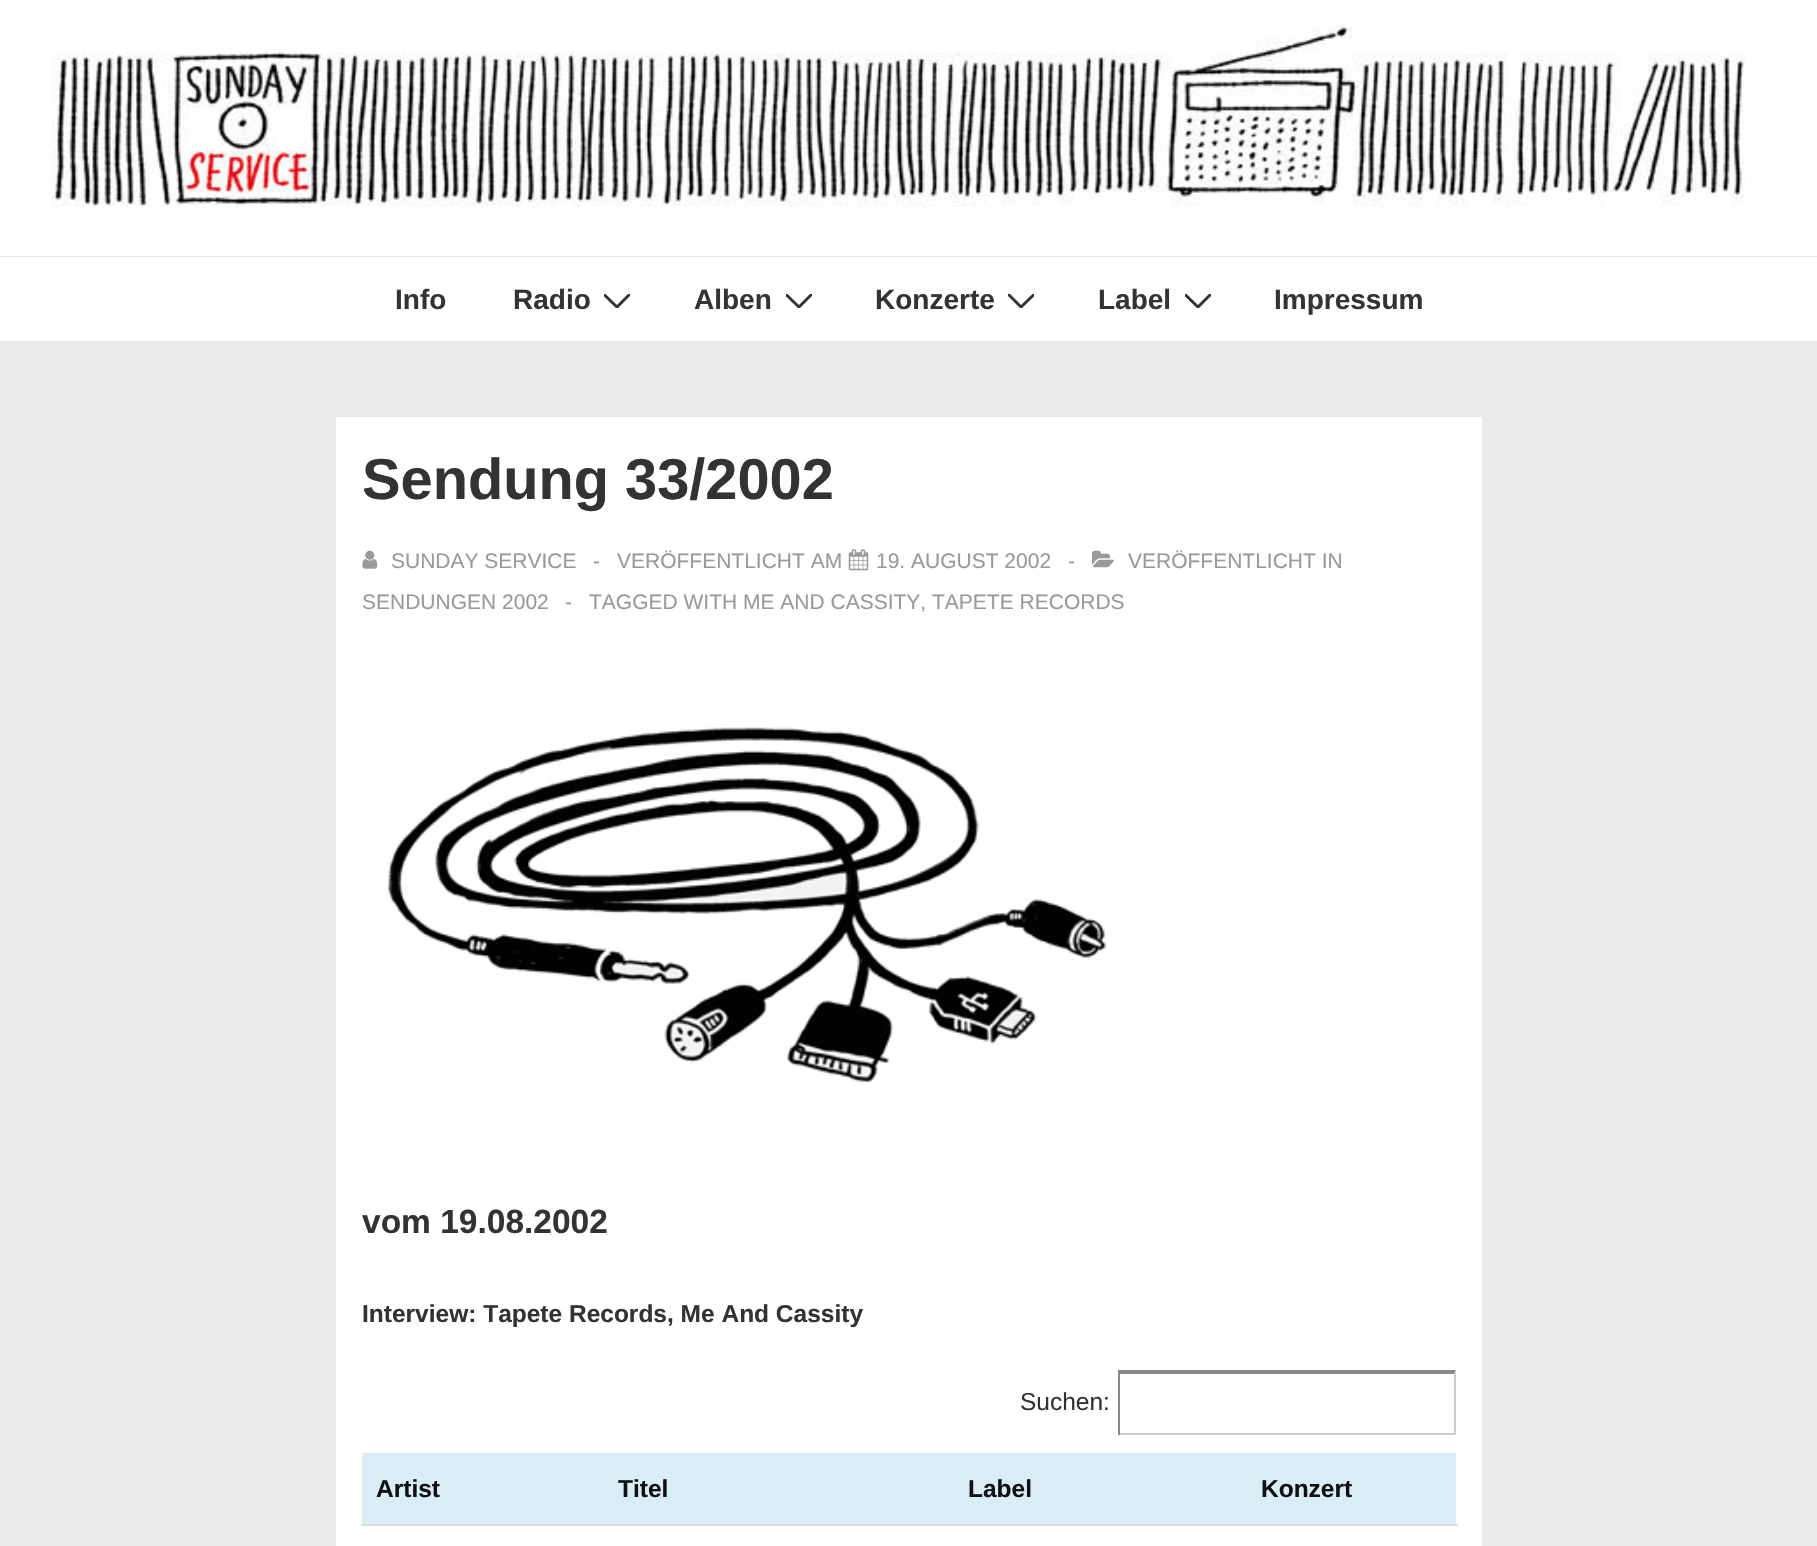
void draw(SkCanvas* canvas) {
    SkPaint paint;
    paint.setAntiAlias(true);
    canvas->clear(0xFFEAEAEA);
    paint.setColor(0xFFFFFFFF);
    canvas->drawRect(SkRect::MakeXYWH(0, 0, 1817, 256), paint);
    canvas->drawImageRect(SkImages::DeferredFromEncodedData(SkData::MakeFromFileName("img1.png")), SkRect::MakeXYWH(51, 24, 1694, 183), SkSamplingOptions());
    canvas->drawRect(SkRect::MakeXYWH(0, 257, 1817, 84), paint);
    SkFont font1(fontMgr->matchFamilyStyle("Liberation Sans", SkFontStyle::Bold()), 28);
    font1.setSubpixel(true);
    paint.setColor(0xFF333333);
    canvas->drawString("Info", 395, 309, font1, paint);
    canvas->drawString("Radio", 513, 309, font1, paint);
    canvas->save();
    canvas->clipRect(SkRect::MakeXYWH(604, 294, 26, 14));
    paint.setStyle(SkPaint::kStroke_Style);
    paint.setStrokeWidth(2.9f);
    paint.setStrokeCap(SkPaint::kRound_Cap);
    canvas->drawPath(SkPathBuilder().moveTo(604.5f, 295).lineTo(617, 307).lineTo(629, 295).detach(), paint);
    canvas->restore();
    paint.setStyle(SkPaint::kFill_Style);
    canvas->drawString("Alben", 694, 309, font1, paint);
    canvas->save();
    canvas->clipRect(SkRect::MakeXYWH(786, 294, 26, 14));
    paint.setStyle(SkPaint::kStroke_Style);
    canvas->drawPath(SkPathBuilder().moveTo(786.5f, 295).lineTo(799, 307).lineTo(811, 295).detach(), paint);
    canvas->restore();
    paint.setStyle(SkPaint::kFill_Style);
    canvas->drawString("Konzerte", 875, 309, font1, paint);
    canvas->save();
    canvas->clipRect(SkRect::MakeXYWH(1008, 294, 26, 14));
    paint.setStyle(SkPaint::kStroke_Style);
    canvas->drawPath(SkPathBuilder().moveTo(1009, 295).lineTo(1021, 307).lineTo(1033.5f, 295).detach(), paint);
    canvas->restore();
    paint.setStyle(SkPaint::kFill_Style);
    canvas->drawString("Label", 1098, 309, font1, paint);
    canvas->save();
    canvas->clipRect(SkRect::MakeXYWH(1185, 294, 26, 14));
    paint.setStyle(SkPaint::kStroke_Style);
    canvas->drawPath(SkPathBuilder().moveTo(1185.5f, 295).lineTo(1198, 307).lineTo(1210, 295).detach(), paint);
    canvas->restore();
    paint.setStyle(SkPaint::kFill_Style);
    canvas->drawString("Impressum", 1274, 309, font1, paint);
    paint.setColor(0xFFFFFFFF);
    canvas->drawRect(SkRect::MakeXYWH(336, 417, 1146, 1129), paint);
    SkFont font2(fontMgr->matchFamilyStyle("Liberation Sans", SkFontStyle::Bold()), 57.75f);
    font2.setSubpixel(true);
    paint.setColor(0xFF333333);
    canvas->drawString("Sendung 33/2002", 362, 499, font2, paint);
    canvas->drawImageRect(SkImages::DeferredFromEncodedData(SkData::MakeFromFileName("img2.png")), SkRect::MakeXYWH(362, 550, 16, 19), SkSamplingOptions());
    SkFont font3(fontMgr->matchFamilyStyle("Liberation Sans", SkFontStyle::Normal()), 21);
    font3.setSubpixel(true);
    paint.setColor(0xFF999999);
    canvas->drawString("SUNDAY SERVICE", 391, 568, font3, paint);
    canvas->drawString("-", 593, 568, font3, paint);
    canvas->drawString("VERÖFFENTLICHT AM", 617, 568, font3, paint);
    canvas->drawImageRect(SkImages::DeferredFromEncodedData(SkData::MakeFromFileName("img3.png")), SkRect::MakeXYWH(848, 549, 21, 22), SkSamplingOptions());
    canvas->drawString("19. AUGUST 2002", 876, 568, font3, paint);
    canvas->drawString("-", 1068, 568, font3, paint);
    canvas->drawImageRect(SkImages::DeferredFromEncodedData(SkData::MakeFromFileName("img4.png")), SkRect::MakeXYWH(1092, 550, 22, 18), SkSamplingOptions());
    canvas->drawString("VERÖFFENTLICHT IN", 1128, 568, font3, paint);
    canvas->drawString("SENDUNGEN 2002", 362, 609, font3, paint);
    canvas->drawString("-", 565, 609, font3, paint);
    canvas->drawString("TAGGED WITH ME AND CASSITY, TAPETE RECORDS", 589, 609, font3, paint);
    canvas->drawImageRect(SkImages::DeferredFromEncodedData(SkData::MakeFromFileName("img5.png")), SkRect::MakeXYWH(388, 727, 719, 356), SkSamplingOptions());
    SkFont font4(fontMgr->matchFamilyStyle("Liberation Sans", SkFontStyle::Bold()), 33.5f);
    font4.setSubpixel(true);
    paint.setColor(0xFF333333);
    canvas->drawString("vom 19.08.2002", 362, 1233, font4, paint);
    SkFont font5(fontMgr->matchFamilyStyle("Liberation Sans", SkFontStyle::Bold()), 24.5f);
    font5.setSubpixel(true);
    canvas->drawString("Interview: Tapete Records, Me And Cassity", 362, 1322, font5, paint);
    SkFont font6(fontMgr->matchFamilyStyle("Liberation Sans", SkFontStyle::Normal()), 24.5f);
    font6.setSubpixel(true);
    canvas->drawString("Suchen:", 1020, 1410, font6, paint);
    paint.setColor(0xFF888888);
    canvas->drawPath(SkPathBuilder().moveTo(1118, 1370).lineTo(1456, 1370).lineTo(1454, 1374).lineTo(1120, 1374).close().detach(), paint);
    paint.setColor(0xFFCCCCCC);
    canvas->drawPath(SkPathBuilder().moveTo(1456, 1370).lineTo(1456, 1435).lineTo(1454, 1433).lineTo(1454, 1374).close().detach(), paint);
    canvas->drawRect(SkRect::MakeXYWH(1118, 1433, 338, 2), paint);
    paint.setColor(0xFF888888);
    canvas->drawRect(SkRect::MakeXYWH(1118, 1370, 2, 65), paint);
    paint.setColor(0xFFD9EDF7);
    canvas->drawRect(SkRect::MakeXYWH(362, 1453, 1094, 71), paint);
    paint.setColor(0xFF111111);
    canvas->drawString("Artist", 376, 1497, font5, paint);
    canvas->drawString("Titel", 618, 1497, font5, paint);
    canvas->drawString("Label", 968, 1497, font5, paint);
    canvas->drawString("Konzert", 1261, 1497, font5, paint);
    paint.setColor(0xFFDDDDDD);
    canvas->drawRect(SkRect::MakeXYWH(361, 1524, 1097, 2), paint);
}
